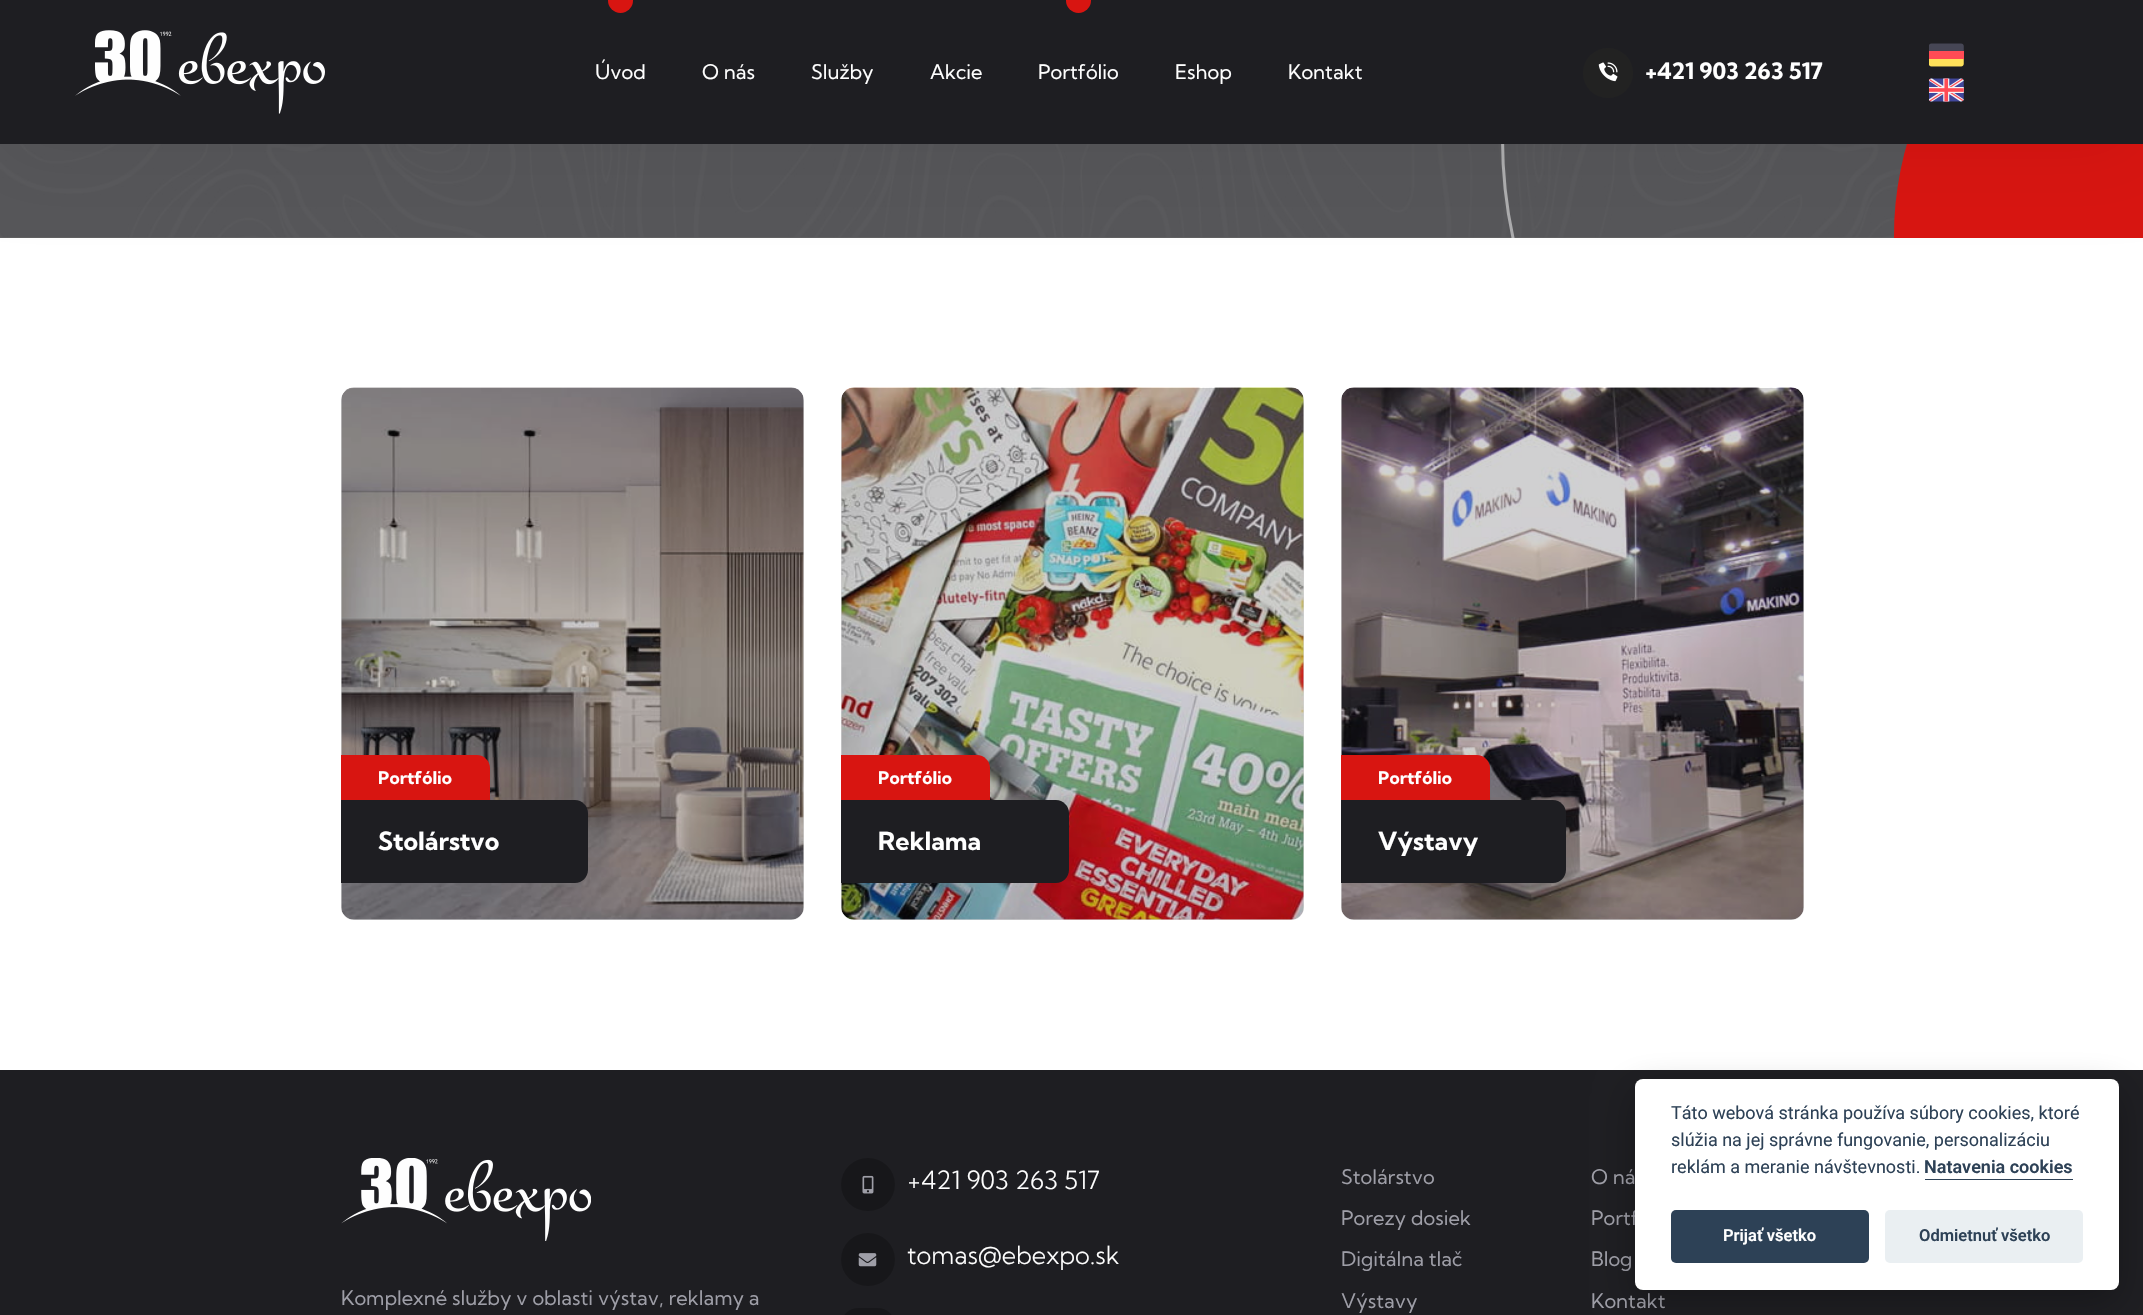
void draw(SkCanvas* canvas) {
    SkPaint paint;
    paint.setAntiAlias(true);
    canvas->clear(0xFFFFFFFF);
    paint.setColor(0xFF626264);
    canvas->drawRect(SkRect::MakeXYWH(0, 237, 1894, 1), paint);
    canvas->drawImageRect(SkImages::DeferredFromEncodedData(SkData::MakeFromFileName("img1.png")), SkRect::MakeXYWH(0, 144, 1907, 94), SkSamplingOptions());
    canvas->drawImageRect(SkImages::DeferredFromEncodedData(SkData::MakeFromFileName("img8.png")), SkRect::MakeXYWH(1341, 387, 463, 533), SkSamplingOptions());
    paint.setColor(0x331E1E22);
    canvas->drawRoundRect(SkRect::MakeXYWH(1341, 388, 463, 532), 13, 13, paint);
    canvas->save();
    canvas->clipRect(SkRect::MakeXYWH(0, 0, 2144, 238));
    paint.setStyle(SkPaint::kStroke_Style);
    paint.setStrokeWidth(3);
    paint.setColor(0x80FFFFFF);
    canvas->drawCircle(1970, 139, 467.5f, paint);
    paint.setStyle(SkPaint::kFill_Style);
    paint.setColor(0xFFD81511);
    canvas->drawPath(SkPathBuilder().moveTo(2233, -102).lineTo(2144, -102).lineTo(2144, 576).lineTo(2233, 576).cubicTo(2046, 576, 1894, 424, 1894, 237).cubicTo(1894, 50, 2046, -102, 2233, -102).close().detach(), paint);
    canvas->restore();
    paint.setColor(0x0D000000);
    paint.setMaskFilter(SkMaskFilter::MakeBlur(kNormal_SkBlurStyle, 37.5f));
    canvas->drawRect(SkRect::MakeXYWH(0, 13, 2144, 143), paint);
    paint.setMaskFilter(nullptr);
    paint.setColor(0xFF1E1E22);
    canvas->drawRect(SkRect::MakeXYWH(0, 0, 2143, 144), paint);
    canvas->drawImageRect(SkImages::DeferredFromEncodedData(SkData::MakeFromFileName("img2.png")), SkRect::MakeXYWH(75, 30, 250, 84), SkSamplingOptions());
    paint.setColor(0xFFD81511);
    canvas->drawCircle(620.5f, 0.5f, 12.5f, paint);
    SkFont font1(fontMgr->matchFamilyStyle("Kumbh Sans", SkFontStyle::Normal()), 20);
    font1.setSubpixel(true);
    paint.setColor(0xFFFFFFFF);
    canvas->drawString("Úvod", 595, 79, font1, paint);
    canvas->drawString("O nás", 702, 79, font1, paint);
    canvas->drawString("Služby", 811, 79, font1, paint);
    canvas->drawString("Akcie", 930, 79, font1, paint);
    paint.setColor(0xFFD81511);
    canvas->drawCircle(1078.5f, 0.5f, 12.5f, paint);
    paint.setColor(0xFFFFFFFF);
    canvas->drawString("Portfólio", 1038, 79, font1, paint);
    canvas->drawString("Eshop", 1175, 79, font1, paint);
    canvas->drawString("Kontakt", 1288, 79, font1, paint);
    paint.setColor(0xFF222222);
    canvas->drawCircle(1608, 73, 25, paint);
    canvas->drawImageRect(SkImages::DeferredFromEncodedData(SkData::MakeFromFileName("img3.png")), SkRect::MakeXYWH(1598, 62, 20, 20), SkSamplingOptions());
    SkFont font2(fontMgr->matchFamilyStyle("Kumbh Sans", SkFontStyle::Bold()), 22.5f);
    font2.setSubpixel(true);
    paint.setColor(0xFFFFFFFF);
    canvas->drawString("+421 903 263 517", 1645, 79, font2, paint);
    canvas->drawImageRect(SkImages::DeferredFromEncodedData(SkData::MakeFromFileName("img4.png")), SkRect::MakeXYWH(1929, 43, 35, 24), SkSamplingOptions());
    canvas->drawImageRect(SkImages::DeferredFromEncodedData(SkData::MakeFromFileName("img5.png")), SkRect::MakeXYWH(1929, 78, 35, 24), SkSamplingOptions());
    canvas->drawImageRect(SkImages::DeferredFromEncodedData(SkData::MakeFromFileName("img6.png")), SkRect::MakeXYWH(341, 387, 463, 533), SkSamplingOptions());
    paint.setColor(0x331E1E22);
    canvas->drawRoundRect(SkRect::MakeXYWH(341, 388, 463, 532), 13, 13, paint);
    paint.setColor(0xFFD81511);
    canvas->drawPath(SkPathBuilder().moveTo(341, 755).lineTo(477, 755).cubicTo(484, 755, 490, 761, 490, 768).lineTo(490, 800).lineTo(341, 800).close().detach(), paint);
    SkFont font3(fontMgr->matchFamilyStyle("Kumbh Sans", SkFontStyle::Bold()), 17.5f);
    font3.setSubpixel(true);
    paint.setColor(0xFFFFFFFF);
    canvas->drawString("Portfólio", 378, 784, font3, paint);
    paint.setColor(0xFF1E1E22);
    canvas->drawPath(SkPathBuilder().moveTo(341, 800).lineTo(575, 800).cubicTo(582, 800, 588, 806, 588, 813).lineTo(588, 870).cubicTo(588, 877, 582, 883, 575, 883).lineTo(341, 883).close().detach(), paint);
    SkFont font4(fontMgr->matchFamilyStyle("Kumbh Sans", SkFontStyle::Bold()), 25);
    font4.setSubpixel(true);
    paint.setColor(0xFFFFFFFF);
    canvas->drawString("Stolárstvo", 378, 850, font4, paint);
    canvas->drawImageRect(SkImages::DeferredFromEncodedData(SkData::MakeFromFileName("img7.png")), SkRect::MakeXYWH(841, 387, 463, 533), SkSamplingOptions());
    paint.setColor(0x331E1E22);
    canvas->drawRoundRect(SkRect::MakeXYWH(841, 388, 463, 532), 13, 13, paint);
    paint.setColor(0xFFD81511);
    canvas->drawPath(SkPathBuilder().moveTo(841, 755).lineTo(977, 755).cubicTo(984, 755, 990, 761, 990, 768).lineTo(990, 800).lineTo(841, 800).close().detach(), paint);
    paint.setColor(0xFFFFFFFF);
    canvas->drawString("Portfólio", 878, 784, font3, paint);
    paint.setColor(0xFF1E1E22);
    canvas->drawPath(SkPathBuilder().moveTo(841, 800).lineTo(1056, 800).cubicTo(1063, 800, 1069, 806, 1069, 813).lineTo(1069, 870).cubicTo(1069, 877, 1063, 883, 1056, 883).lineTo(841, 883).close().detach(), paint);
    paint.setColor(0xFFFFFFFF);
    canvas->drawString("Reklama", 878, 850, font4, paint);
    paint.setColor(0xFFD81511);
    canvas->drawPath(SkPathBuilder().moveTo(1341, 755).lineTo(1477, 755).cubicTo(1484, 755, 1490, 761, 1490, 768).lineTo(1490, 800).lineTo(1341, 800).close().detach(), paint);
    paint.setColor(0xFFFFFFFF);
    canvas->drawString("Portfólio", 1378, 784, font3, paint);
    paint.setColor(0xFF1E1E22);
    canvas->drawPath(SkPathBuilder().moveTo(1341, 800).lineTo(1553, 800).cubicTo(1560, 800, 1566, 806, 1566, 813).lineTo(1566, 870).cubicTo(1566, 877, 1560, 883, 1553, 883).lineTo(1341, 883).close().detach(), paint);
    paint.setColor(0xFFFFFFFF);
    canvas->drawString("Výstavy", 1378, 850, font4, paint);
    paint.setColor(0xFF1E1E22);
    canvas->drawRect(SkRect::MakeXYWH(0, 1070, 2143, 245), paint);
    paint.setColor(0xFF17171A);
    canvas->drawRoundRect(SkRect::MakeXYWH(841, 1158, 54, 53), 26.5f, 26.5f, paint);
    canvas->drawImageRect(SkImages::DeferredFromEncodedData(SkData::MakeFromFileName("img9.png")), SkRect::MakeXYWH(862, 1175, 12, 19), SkSamplingOptions());
    SkFont font5(fontMgr->matchFamilyStyle("Kumbh Sans", SkFontStyle(300, SkFontStyle::kNormal_Width, SkFontStyle::kUpright_Slant)), 25);
    font5.setSubpixel(true);
    paint.setColor(0xFFFFFFFF);
    canvas->drawString("+421 903 263 517", 907, 1189, font5, paint);
    paint.setColor(0xFF17171A);
    canvas->drawRoundRect(SkRect::MakeXYWH(841, 1233, 54, 53), 26.5f, 26.5f, paint);
    canvas->drawImageRect(SkImages::DeferredFromEncodedData(SkData::MakeFromFileName("img10.png")), SkRect::MakeXYWH(858, 1253, 19, 14), SkSamplingOptions());
    paint.setColor(0xFFFFFFFF);
    canvas->drawString("tomas@ebexpo.sk", 907, 1264, font5, paint);
    paint.setColor(0xFF17171A);
    canvas->drawRoundRect(SkRect::MakeXYWH(841, 1308, 54, 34), 26.5f, 26.5f, paint);
    paint.setColor(0xFF9E9EA7);
    canvas->drawString("Stolárstvo", 1341, 1184, font1, paint);
    canvas->drawString("Porezy dosiek", 1341, 1225, font1, paint);
    canvas->drawString("Digitálna tlač", 1341, 1266, font1, paint);
    canvas->drawString("Výstavy", 1341, 1308, font1, paint);
    canvas->drawString("O ná", 1591, 1184, font1, paint);
    canvas->drawString("Portf", 1591, 1225, font1, paint);
    canvas->drawString("Blog", 1591, 1266, font1, paint);
    canvas->drawString("Kontakt", 1591, 1308, font1, paint);
    canvas->drawImageRect(SkImages::DeferredFromEncodedData(SkData::MakeFromFileName("img11.png")), SkRect::MakeXYWH(341, 1158, 250, 83), SkSamplingOptions());
    canvas->drawString("Komplexné služby v oblasti výstav, reklamy a", 341, 1305, font1, paint);
    paint.setColor(0x47020203);
    paint.setMaskFilter(SkMaskFilter::MakeBlur(kNormal_SkBlurStyle, 19));
    canvas->drawRoundRect(SkRect::MakeXYWH(1635, 1091, 484, 212), 8, 8, paint);
    paint.setMaskFilter(nullptr);
    paint.setColor(0xFFFFFFFF);
    canvas->drawRoundRect(SkRect::MakeXYWH(1635, 1079, 484, 211), 8, 8, paint);
    SkFont font6(fontMgr->matchFamilyStyle("Roboto", SkFontStyle::Normal()), 18);
    font6.setSubpixel(true);
    paint.setColor(0xFF2D4156);
    canvas->drawString("Táto webová stránka používa súbory cookies, ktoré", 1671, 1119, font6, paint);
    canvas->drawString("slúžia na jej správne fungovanie, personalizáciu", 1671, 1146, font6, paint);
    canvas->drawString("reklám a meranie návštevnosti.", 1671, 1173, font6, paint);
    SkFont font7(fontMgr->matchFamilyStyle("Roboto", SkFontStyle(600, SkFontStyle::kNormal_Width, SkFontStyle::kUpright_Slant)), 18);
    font7.setSubpixel(true);
    canvas->drawString("Natavenia cookies", 1924, 1173, font7, paint);
    canvas->drawRect(SkRect::MakeXYWH(1925, 1179, 148, 1), paint);
    canvas->drawRoundRect(SkRect::MakeXYWH(1671, 1210, 198, 53), 5, 5, paint);
    SkFont font8(fontMgr->matchFamilyStyle("Roboto", SkFontStyle(600, SkFontStyle::kNormal_Width, SkFontStyle::kUpright_Slant)), 16.5f);
    font8.setSubpixel(true);
    paint.setColor(0xFFFFFFFF);
    canvas->drawString("Prijať všetko", 1723, 1241, font8, paint);
    paint.setColor(0xFFEAEFF2);
    canvas->drawRoundRect(SkRect::MakeXYWH(1885, 1210, 198, 53), 5, 5, paint);
    paint.setColor(0xFF2D4156);
    canvas->drawString("Odmietnuť všetko", 1919, 1241, font8, paint);
}
